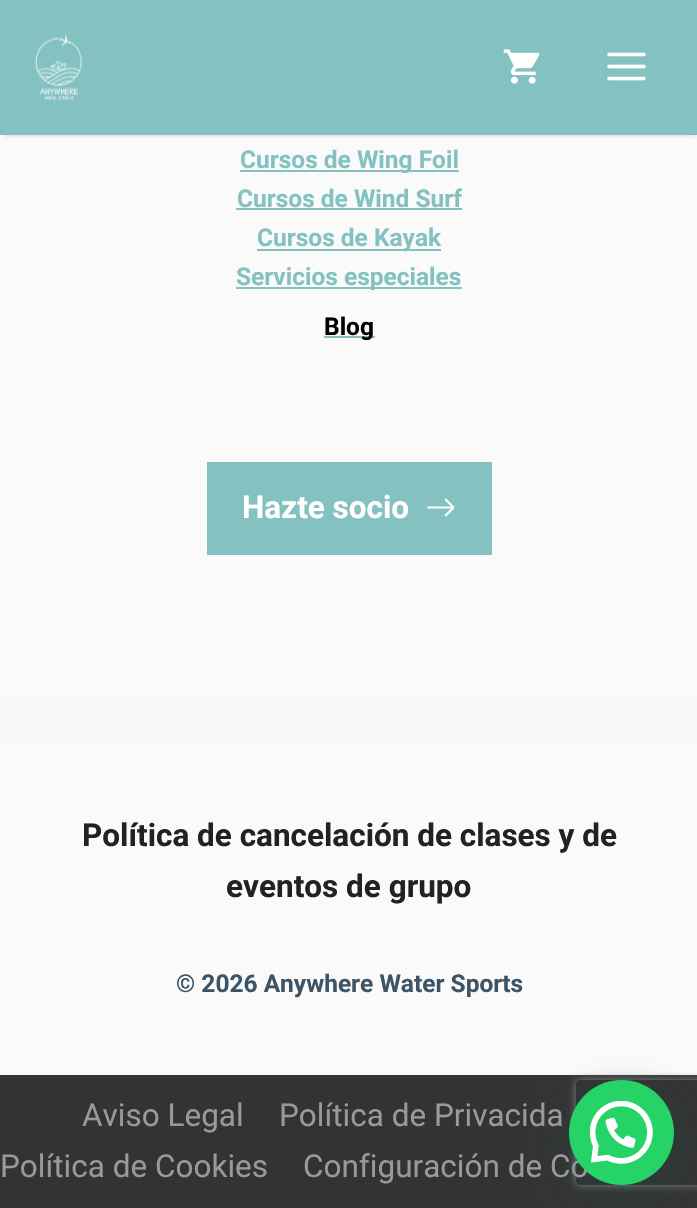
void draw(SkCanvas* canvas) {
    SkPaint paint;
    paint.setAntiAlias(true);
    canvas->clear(0xFFF7F8F9);
    paint.setColor(0xFFFAFAFA);
    canvas->drawRect(SkRect::MakeXYWH(0, 135, 697, 560), paint);
    paint.setColor(0x33000000);
    paint.setMaskFilter(SkMaskFilter::MakeBlur(kNormal_SkBlurStyle, 2));
    canvas->drawRect(SkRect::MakeXYWH(4, 7, 691, 128), paint);
    paint.setMaskFilter(nullptr);
    paint.setColor(0xFF84C2C1);
    canvas->drawRect(SkRect::MakeXYWH(0, 0, 697, 135), paint);
    canvas->drawImageRect(SkImages::DeferredFromEncodedData(SkData::MakeFromFileName("img1.png")), SkRect::MakeXYWH(35, 34, 48, 67), SkSamplingOptions());
    canvas->drawImageRect(SkImages::DeferredFromEncodedData(SkData::MakeFromFileName("img2.png")), SkRect::MakeXYWH(503, 49, 37, 35), SkSamplingOptions());
    canvas->drawImageRect(SkImages::DeferredFromEncodedData(SkData::MakeFromFileName("img3.png")), SkRect::MakeXYWH(607, 52, 39, 29), SkSamplingOptions());
    canvas->drawRect(SkRect::MakeXYWH(240, 170, 219, 2), paint);
    SkFont font1(fontMgr->matchFamilyStyle("Roboto", SkFontStyle::Bold()), 24.5f);
    font1.setSubpixel(true);
    canvas->drawString("Cursos de Wing Foil", 240, 168, font1, paint);
    canvas->drawString("Cursos de Wind Surf", 237, 207, font1, paint);
    canvas->drawRect(SkRect::MakeXYWH(236, 208, 226, 2), paint);
    canvas->drawRect(SkRect::MakeXYWH(257, 249, 184, 2), paint);
    canvas->drawString("Cursos de Kayak", 257, 246, font1, paint);
    canvas->drawRect(SkRect::MakeXYWH(236, 287, 226, 2), paint);
    canvas->drawString("Servicios especiales", 236, 285, font1, paint);
    canvas->drawRect(SkRect::MakeXYWH(324, 336, 51, 2), paint);
    paint.setColor(0xFF000000);
    canvas->drawString("Blog", 324, 335, font1, paint);
    paint.setColor(0xFF84C2C1);
    canvas->drawRect(SkRect::MakeXYWH(207, 462, 285, 93), paint);
    SkFont font2(fontMgr->matchFamilyStyle("Roboto", SkFontStyle::Bold()), 31.5f);
    font2.setSubpixel(true);
    paint.setColor(0xFFFFFFFF);
    canvas->drawString("Hazte socio", 242, 518, font2, paint);
    canvas->drawImageRect(SkImages::DeferredFromEncodedData(SkData::MakeFromFileName("img4.png")), SkRect::MakeXYWH(427, 498, 28, 19), SkSamplingOptions());
    paint.setColor(0xFFFAFAFA);
    canvas->drawRect(SkRect::MakeXYWH(0, 742, 697, 333), paint);
    paint.setColor(0xFF222222);
    canvas->drawString("Política de cancelación de clases y de", 82, 846, font2, paint);
    canvas->drawString("eventos de grupo", 226, 897, font2, paint);
    paint.setColor(0xFF3D5467);
    canvas->drawString("© 2026 Anywhere Water Sports", 176, 992, font1, paint);
    paint.setColor(0xFF333333);
    canvas->drawRect(SkRect::MakeXYWH(0, 1075, 697, 133), paint);
    paint.setColor(0x3D075E54);
    paint.setMaskFilter(SkMaskFilter::MakeBlur(kNormal_SkBlurStyle, 21));
    canvas->drawRoundRect(SkRect::MakeXYWH(571, 1090, 105, 105), 52.5f, 52.5f, paint);
    paint.setMaskFilter(nullptr);
    SkFont font3(fontMgr->matchFamilyStyle("Roboto", SkFontStyle::Normal()), 31.5f);
    font3.setSubpixel(true);
    paint.setColor(0xFF999999);
    canvas->drawString("Configuración de Co", 303, 1177, font3, paint);
    canvas->save();
    canvas->clipPath(SkPathBuilder(SkPathFillType::kEvenOdd).moveTo(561, 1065).lineTo(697, 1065).lineTo(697, 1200).lineTo(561, 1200).close().moveTo(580, 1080).lineTo(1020, 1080).cubicTo(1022, 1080, 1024, 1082, 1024, 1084).lineTo(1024, 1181).cubicTo(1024, 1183, 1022, 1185, 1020, 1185).lineTo(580, 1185).cubicTo(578, 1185, 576, 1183, 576, 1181).lineTo(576, 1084).cubicTo(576, 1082, 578, 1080, 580, 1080).close().detach(), true);
    paint.setColor(0xFF808080);
    paint.setMaskFilter(SkMaskFilter::MakeBlur(kNormal_SkBlurStyle, 4.5f));
    canvas->drawRoundRect(SkRect::MakeXYWH(576, 1080, 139, 105), 4, 4, paint);
    paint.setMaskFilter(nullptr);
    canvas->restore();
    paint.setColor(0xFF25D366);
    canvas->drawCircle(621.5f, 1132.5f, 52.5f, paint);
    canvas->drawImageRect(SkImages::DeferredFromEncodedData(SkData::MakeFromFileName("img5.png")), SkRect::MakeXYWH(590, 1101, 63, 63), SkSamplingOptions());
    paint.setColor(0xFF999999);
    canvas->drawString("Aviso Legal", 82, 1126, font3, paint);
    canvas->drawString("Política de Privacida", 279, 1126, font3, paint);
    canvas->drawString("Política de Cookies", 0, 1177, font3, paint);
}
